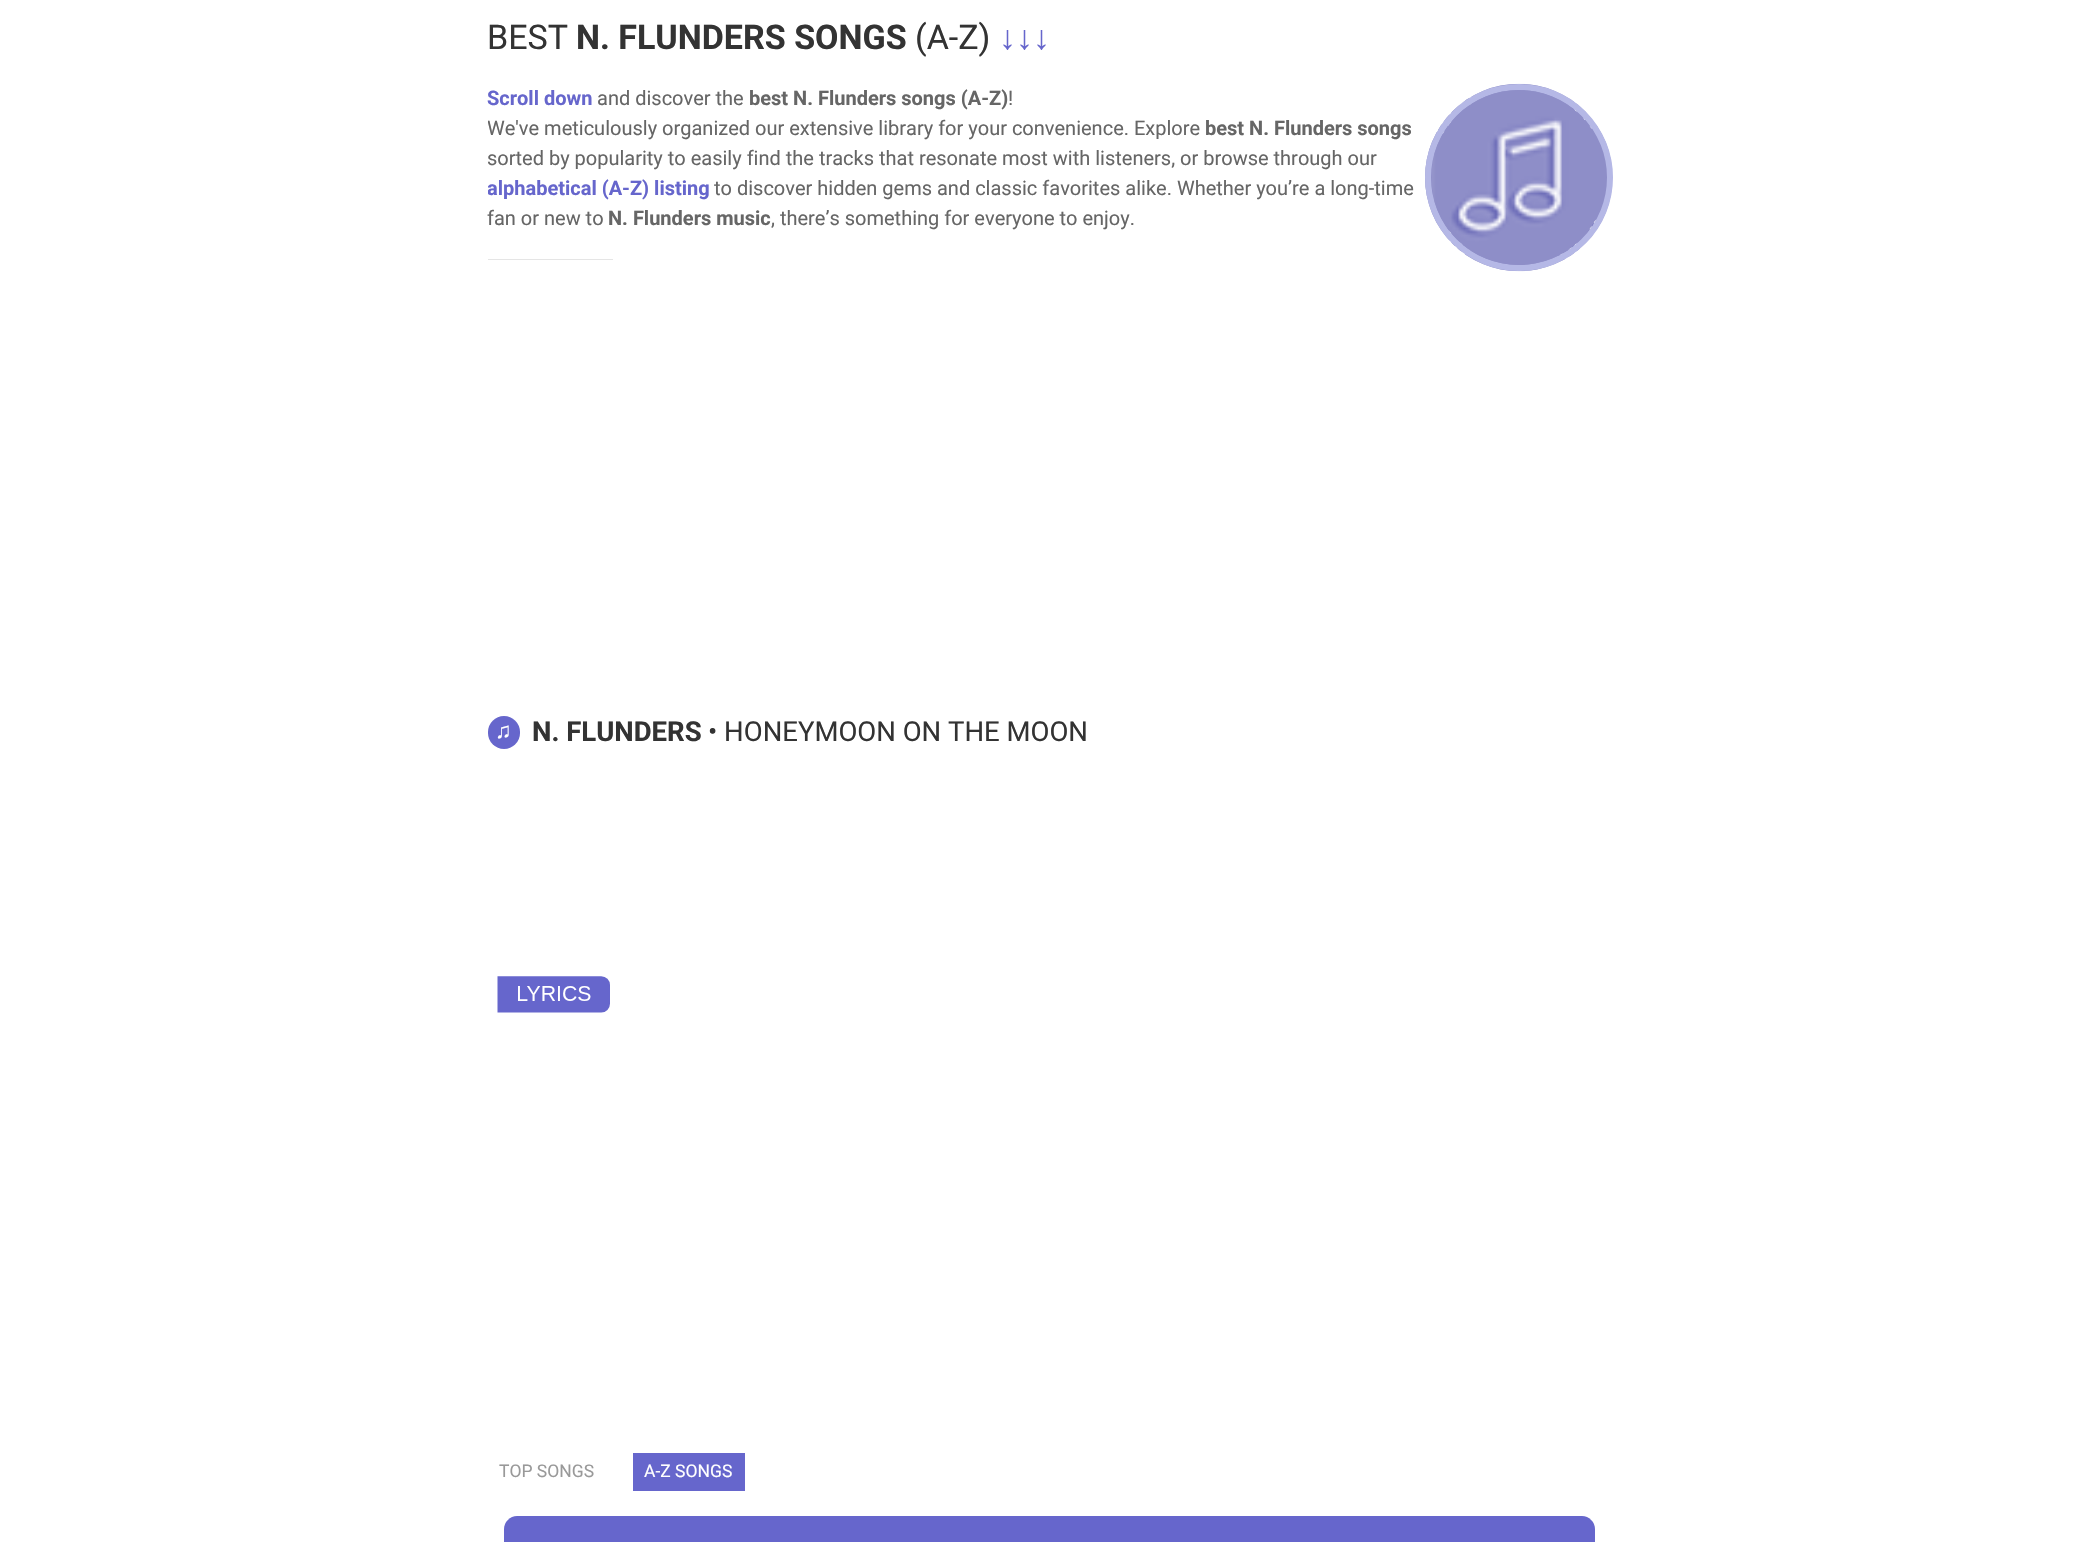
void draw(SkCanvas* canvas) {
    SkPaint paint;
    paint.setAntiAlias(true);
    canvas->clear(0xFFFFFFFF);
    SkFont font1(fontMgr->matchFamilyStyle("Roboto", SkFontStyle::Normal()), 34);
    font1.setSubpixel(true);
    paint.setColor(0xFF333333);
    canvas->drawString("BEST", 487, 49, font1, paint);
    SkFont font2(fontMgr->matchFamilyStyle("Roboto", SkFontStyle::Bold()), 34);
    font2.setSubpixel(true);
    canvas->drawString("N. FLUNDERS SONGS", 576, 49, font2, paint);
    canvas->drawString("(A-Z)", 915, 49, font1, paint);
    SkFont font3(fontMgr->matchFamilyStyle("Liberation Sans", SkFontStyle::Normal()), 34);
    font3.setSubpixel(true);
    paint.setColor(0xFF6666CC);
    canvas->drawString("↓↓↓", 999, 49, font3, paint);
    SkFont font4(fontMgr->matchFamilyStyle("Roboto", SkFontStyle::Bold()), 20);
    font4.setSubpixel(true);
    canvas->drawString("Scroll down", 487, 105, font4, paint);
    SkFont font5(fontMgr->matchFamilyStyle("Roboto", SkFontStyle::Normal()), 20);
    font5.setSubpixel(true);
    paint.setColor(0xFF666666);
    canvas->drawString("and discover the", 597, 105, font5, paint);
    canvas->drawString("best N. Flunders songs (A-Z)", 749, 105, font4, paint);
    canvas->drawString("!", 1008, 105, font5, paint);
    canvas->save();
    canvas->clipRect(SkRect::MakeXYWH(488, 18, 1125, 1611));
    canvas->drawString("We've meticulously organized our extensive library for your convenience. Explore", 487, 135, font5, paint);
    canvas->restore();
    canvas->drawString("best N. Flunders songs", 1205, 135, font4, paint);
    canvas->drawString("sorted by popularity to easily find the tracks that resonate most with listeners, or browse through our", 487, 165, font5, paint);
    canvas->save();
    canvas->clipRect(SkRect::MakeXYWH(488, 18, 1125, 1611));
    paint.setColor(0xFF6666CC);
    canvas->drawString("alphabetical (A-Z) listing", 487, 195, font4, paint);
    canvas->restore();
    paint.setColor(0xFF666666);
    canvas->drawString("to discover hidden gems and classic favorites alike. Whether you’re a long-time", 714, 195, font5, paint);
    canvas->drawString("fan or new to", 487, 225, font5, paint);
    canvas->drawString("N. Flunders music", 608, 225, font4, paint);
    canvas->drawString(", there’s something for everyone to enjoy.", 771, 225, font5, paint);
    canvas->drawImageRect(SkImages::DeferredFromEncodedData(SkData::MakeFromFileName("img1.png")), SkRect::MakeXYWH(1425, 83, 188, 189), SkSamplingOptions());
    paint.setStyle(SkPaint::kStroke_Style);
    paint.setStrokeWidth(6);
    paint.setColor(0xFFB5B8E6);
    canvas->drawRoundRect(SkRect::MakeXYWH(1428, 87, 182, 181), 90.5f, 90.5f, paint);
    canvas->drawImageRect(SkImages::DeferredFromEncodedData(SkData::MakeFromFileName("img2.png")), SkRect::MakeXYWH(1434, 90, 161, 175), SkSamplingOptions());
    paint.setStyle(SkPaint::kFill_Style);
    paint.setColor(0xFFE5E5E5);
    canvas->drawRect(SkRect::MakeXYWH(488, 259, 125, 1), paint);
    paint.setColor(0xFF6666CC);
    canvas->drawRoundRect(SkRect::MakeXYWH(488, 716, 32, 33), 16, 16, paint);
    SkFont font6(fontMgr->matchFamilyStyle("Liberation Sans", SkFontStyle::Bold()), 22);
    font6.setSubpixel(true);
    paint.setColor(0xFFFFFFFF);
    canvas->drawString("♫", 495, 738, font6, paint);
    SkFont font7(fontMgr->matchFamilyStyle("Roboto", SkFontStyle::Bold()), 27.5f);
    font7.setSubpixel(true);
    paint.setColor(0xFF333333);
    canvas->drawString("N. FLUNDERS", 532, 741, font7, paint);
    SkFont font8(fontMgr->matchFamilyStyle("Roboto", SkFontStyle::Normal()), 27.5f);
    font8.setSubpixel(true);
    canvas->drawString("• HONEYMOON ON THE MOON", 708, 741, font8, paint);
    canvas->drawImageRect(SkImages::DeferredFromEncodedData(SkData::MakeFromFileName("img3.png")), SkRect::MakeXYWH(497, 976, 113, 37), SkSamplingOptions());
    SkFont font9(fontMgr->matchFamilyStyle("Roboto", SkFontStyle::Normal()), 17.5f);
    font9.setSubpixel(true);
    paint.setColor(0xFF999999);
    canvas->drawString("TOP SONGS", 499, 1477, font9, paint);
    paint.setColor(0xFF6666CC);
    canvas->drawRect(SkRect::MakeXYWH(633, 1453, 112, 38), paint);
    paint.setColor(0xFFFFFFFF);
    canvas->drawString("A-Z SONGS", 644, 1477, font9, paint);
    paint.setColor(0xFF6666CC);
    canvas->drawPath(SkPathBuilder().moveTo(517, 1516).lineTo(1582, 1516).cubicTo(1589, 1516, 1595, 1522, 1595, 1529).lineTo(1595, 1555).lineTo(504, 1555).lineTo(504, 1529).cubicTo(504, 1522, 510, 1516, 517, 1516).close().detach(), paint);
}
